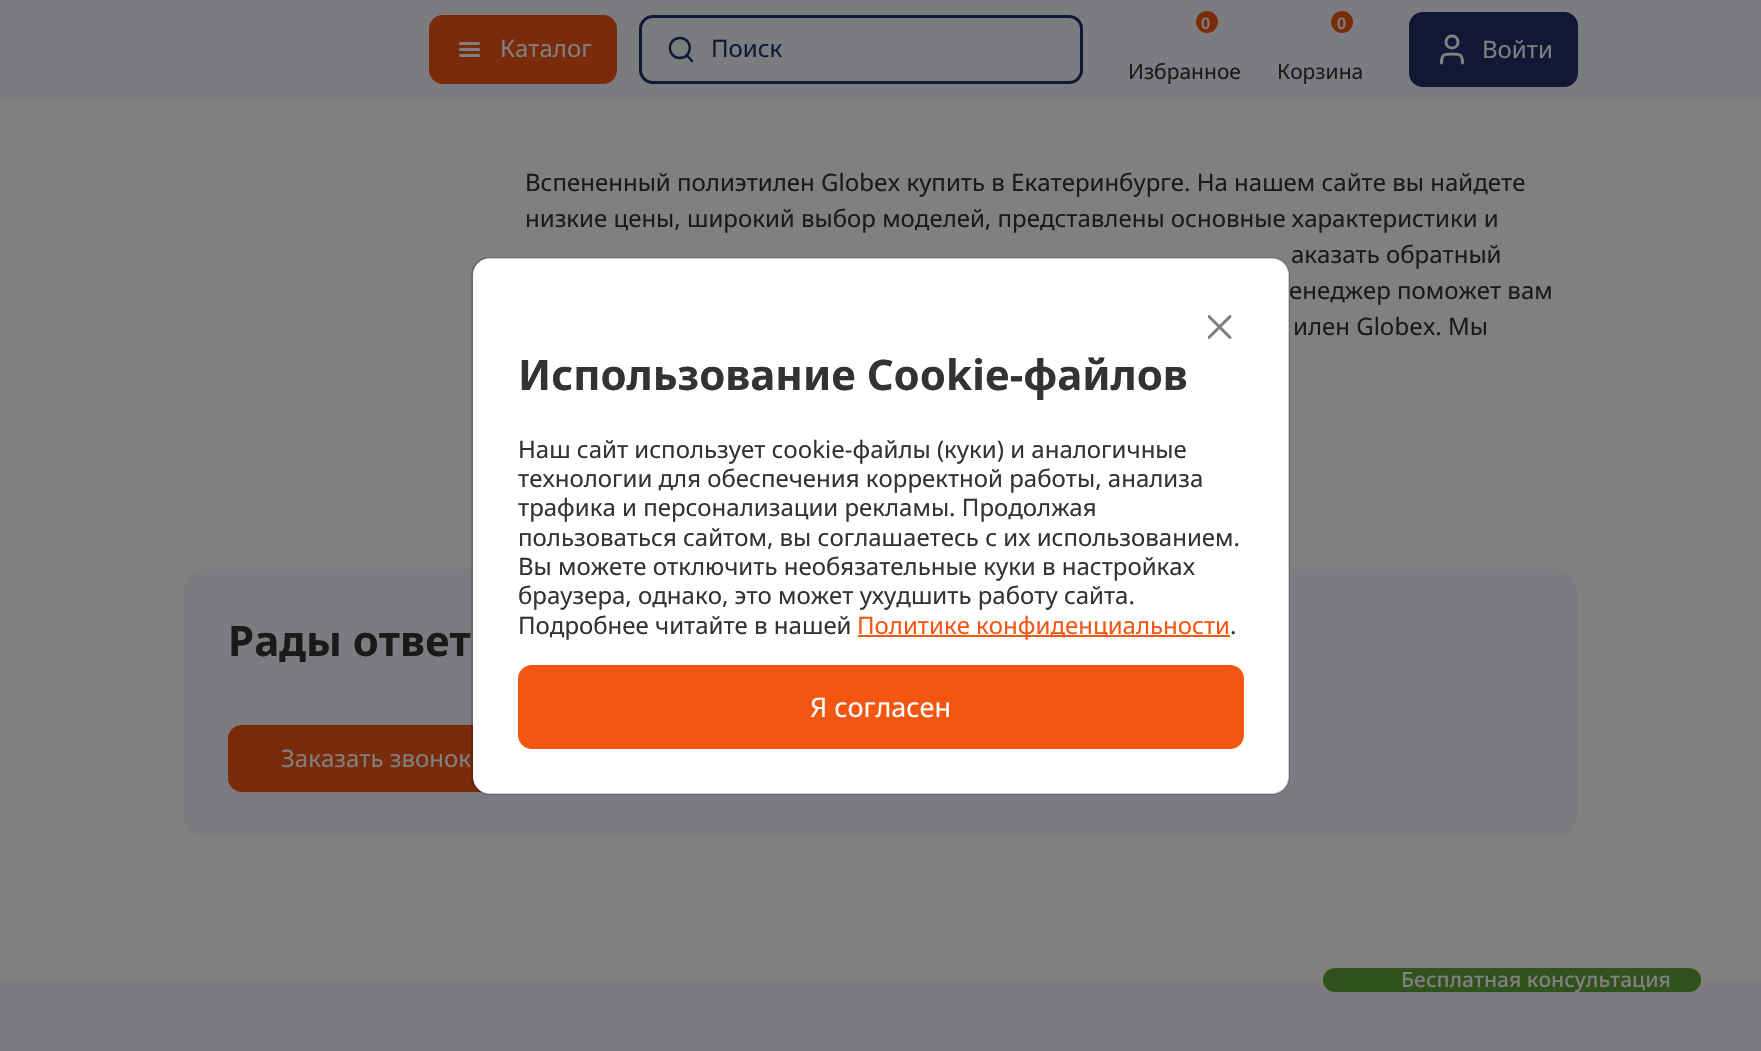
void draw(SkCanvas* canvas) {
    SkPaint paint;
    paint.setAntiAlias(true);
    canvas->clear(0xFF808080);
    paint.setColor(0xFF7B7C80);
    canvas->drawRect(SkRect::MakeXYWH(0, 0, 1761, 99), paint);
    paint.setColor(0xFF7A2B09);
    canvas->drawRoundRect(SkRect::MakeXYWH(430, 16, 186, 67), 13, 13, paint);
    paint.setStyle(SkPaint::kStroke_Style);
    paint.setStrokeWidth(2);
    canvas->drawRoundRect(SkRect::MakeXYWH(430, 16, 186, 67), 13, 13, paint);
    paint.setStyle(SkPaint::kFill_Style);
    paint.setColor(0xFF808080);
    canvas->drawRoundRect(SkRect::MakeXYWH(459, 48, 21, 3), 1.5f, 1.5f, paint);
    canvas->drawRoundRect(SkRect::MakeXYWH(459, 42, 21, 3), 1.5f, 1.5f, paint);
    canvas->drawRoundRect(SkRect::MakeXYWH(459, 54, 21, 3), 1.5f, 1.5f, paint);
    SkFont font1(fontMgr->matchFamilyStyle("Noto Sans", SkFontStyle::Normal()), 24);
    font1.setSubpixel(true);
    canvas->drawString("Каталог", 500, 57, font1, paint);
    paint.setStyle(SkPaint::kStroke_Style);
    paint.setStrokeWidth(3);
    paint.setColor(0xFF111735);
    canvas->drawRoundRect(SkRect::MakeXYWH(640.5f, 16.5f, 441, 66), 12.5f, 12.5f, paint);
    paint.setStrokeWidth(2.5f);
    paint.setStrokeCap(SkPaint::kRound_Cap);
    paint.setStrokeJoin(SkPaint::kRound_Join);
    canvas->drawPath(SkPathBuilder().moveTo(680, 58).cubicTo(693, 58, 693, 38, 680, 38).cubicTo(666.5f, 38, 666.5f, 58, 680, 58).close().moveTo(692, 61).lineTo(687, 55.5f).detach(), paint);
    paint.setStyle(SkPaint::kFill_Style);
    canvas->drawString("Поиск", 711, 57, font1, paint);
    paint.setColor(0xFF7A2B09);
    canvas->drawCircle(1207, 22, 11, paint);
    SkFont font2(fontMgr->matchFamilyStyle("Noto Sans", SkFontStyle(600, SkFontStyle::kNormal_Width, SkFontStyle::kUpright_Slant)), 16);
    font2.setSubpixel(true);
    paint.setColor(0xFF808080);
    canvas->drawString("0", 1201, 29, font2, paint);
    SkFont font3(fontMgr->matchFamilyStyle("Noto Sans", SkFontStyle::Normal()), 21);
    font3.setSubpixel(true);
    paint.setColor(0xFF1A1A1A);
    canvas->drawString("Избранное", 1128, 79, font3, paint);
    paint.setColor(0xFF7A2B09);
    canvas->drawCircle(1342, 22, 11, paint);
    paint.setColor(0xFF808080);
    canvas->drawString("0", 1337, 29, font2, paint);
    paint.setColor(0xFF1A1A1A);
    canvas->drawString("Корзина", 1277, 79, font3, paint);
    paint.setColor(0xFF111735);
    canvas->drawRoundRect(SkRect::MakeXYWH(1410, 13, 167, 73), 13, 13, paint);
    paint.setStyle(SkPaint::kStroke_Style);
    paint.setStrokeWidth(2);
    paint.setStrokeCap(SkPaint::kButt_Cap);
    paint.setStrokeJoin(SkPaint::kMiter_Join);
    canvas->drawRoundRect(SkRect::MakeXYWH(1410, 13, 167, 73), 13, 13, paint);
    paint.setStrokeWidth(3);
    paint.setStrokeCap(SkPaint::kRound_Cap);
    paint.setStrokeJoin(SkPaint::kRound_Join);
    paint.setColor(0xFF808080);
    canvas->drawPath(SkPathBuilder().moveTo(1462.5f, 63).cubicTo(1462.5f, 54.5f, 1460, 54, 1452, 54).cubicTo(1444, 54, 1441.5f, 54.5f, 1441.5f, 63).moveTo(1452, 48).cubicTo(1460, 48, 1460, 36, 1452, 36).cubicTo(1444, 36, 1444, 48, 1452, 48).close().detach(), paint);
    paint.setStyle(SkPaint::kFill_Style);
    canvas->drawString("Войти", 1482, 58, font1, paint);
    paint.setColor(0xFF1A1A1A);
    canvas->drawString("Вспененный полиэтилен Globex купить в Екатеринбурге. На нашем сайте вы найдете", 525, 191, font1, paint);
    canvas->drawString("низкие цены, широкий выбор моделей, представлены основные характеристики и", 525, 227, font1, paint);
    canvas->drawString("аказать обратный", 1291, 263, font1, paint);
    canvas->drawString("енеджер поможет вам", 1289, 299, font1, paint);
    canvas->drawString("илен Globex. Мы", 1293, 335, font1, paint);
    paint.setColor(0xFF7B7C80);
    canvas->drawRoundRect(SkRect::MakeXYWH(183, 569, 1395, 268), 24, 24, paint);
    SkFont font4(fontMgr->matchFamilyStyle("Noto Sans", SkFontStyle::Bold()), 42);
    font4.setSubpixel(true);
    paint.setColor(0xFF1A1A1A);
    canvas->drawString("Рады ответ", 228, 656, font4, paint);
    paint.setColor(0xFF7A2B09);
    canvas->drawRoundRect(SkRect::MakeXYWH(229, 726, 294, 65), 13, 13, paint);
    paint.setStyle(SkPaint::kStroke_Style);
    paint.setStrokeWidth(2);
    paint.setStrokeCap(SkPaint::kButt_Cap);
    paint.setStrokeJoin(SkPaint::kMiter_Join);
    canvas->drawRoundRect(SkRect::MakeXYWH(229, 726, 294, 65), 13, 13, paint);
    paint.setStyle(SkPaint::kFill_Style);
    paint.setColor(0xFF808080);
    canvas->drawString("Заказать звонок", 281, 767, font1, paint);
    paint.setColor(0xFF7B7C80);
    canvas->drawRect(SkRect::MakeXYWH(0, 981, 1761, 70), paint);
    paint.setColor(0xFF31511D);
    canvas->drawRoundRect(SkRect::MakeXYWH(1323, 968, 378, 24), 12, 12, paint);
    SkFont font5(fontMgr->matchFamilyStyle("Noto Sans", SkFontStyle(500, SkFontStyle::kNormal_Width, SkFontStyle::kUpright_Slant)), 21);
    font5.setSubpixel(true);
    paint.setColor(0xFF808080);
    canvas->drawString("Бесплатная консультация", 1401, 987, font5, paint);
    paint.setColor(0xFFFFFFFF);
    canvas->drawRoundRect(SkRect::MakeXYWH(473, 258, 816, 536), 17, 17, paint);
    paint.setStyle(SkPaint::kStroke_Style);
    paint.setColor(0x2E000000);
    canvas->drawRoundRect(SkRect::MakeXYWH(472, 258, 817, 536), 17, 17, paint);
    canvas->drawImageRect(SkImages::DeferredFromEncodedData(SkData::MakeFromFileName("img1.png")), SkRect::MakeXYWH(1208, 315, 24, 24), SkSamplingOptions());
    paint.setStyle(SkPaint::kFill_Style);
    paint.setColor(0xFF333333);
    canvas->drawString("Использование Cookie-файлов", 518, 390, font4, paint);
    canvas->drawString("Наш сайт использует cookie-файлы (куки) и аналогичные", 518, 458, font1, paint);
    canvas->drawString("технологии для обеспечения корректной работы, анализа", 518, 487, font1, paint);
    canvas->drawString("трафика и персонализации рекламы. Продолжая", 518, 516, font1, paint);
    canvas->drawString("пользоваться сайтом, вы соглашаетесь с их использованием.", 518, 546, font1, paint);
    canvas->drawString("Вы можете отключить необязательные куки в настройках", 518, 575, font1, paint);
    canvas->drawString("браузера, однако, это может ухудшить работу сайта.", 518, 604, font1, paint);
    canvas->drawString("Подробнее читайте в нашей", 518, 634, font1, paint);
    paint.setColor(0xFFF35611);
    canvas->drawRect(SkRect::MakeXYWH(858, 635, 372, 2), paint);
    canvas->drawString("Политике конфиденциальности", 857, 634, font1, paint);
    paint.setColor(0xFF333333);
    canvas->drawString(".", 1230, 634, font1, paint);
    paint.setColor(0xFFF35611);
    canvas->drawRoundRect(SkRect::MakeXYWH(519, 666, 724, 82), 13, 13, paint);
    paint.setStyle(SkPaint::kStroke_Style);
    canvas->drawRoundRect(SkRect::MakeXYWH(519, 666, 724, 82), 13, 13, paint);
    SkFont font6(fontMgr->matchFamilyStyle("Noto Sans", SkFontStyle::Normal()), 27);
    font6.setSubpixel(true);
    paint.setStyle(SkPaint::kFill_Style);
    paint.setColor(0xFFFFFFFF);
    canvas->drawString("Я согласен", 810, 717, font6, paint);
}
